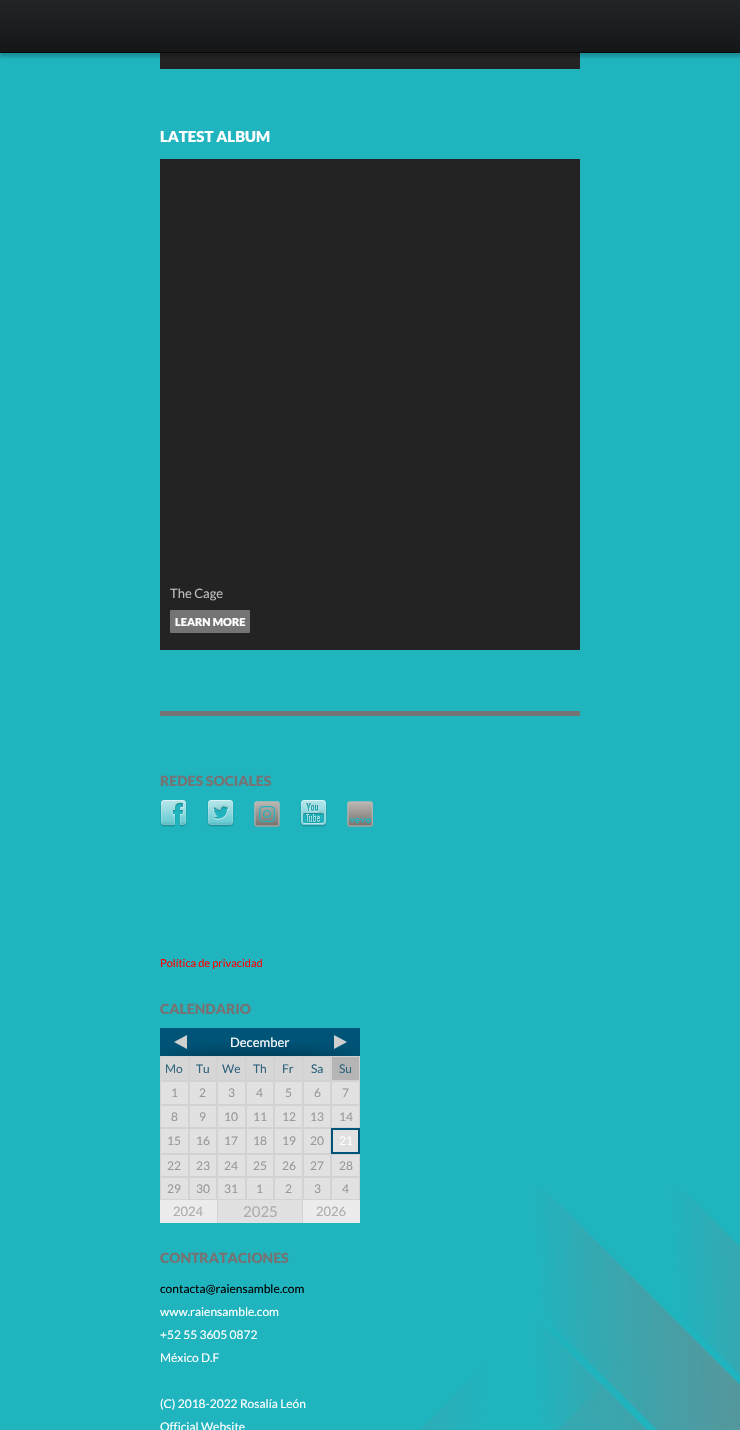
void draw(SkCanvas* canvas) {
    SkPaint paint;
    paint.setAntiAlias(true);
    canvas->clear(0xFF20B4BF);
    paint.setColor(0xFF232323);
    canvas->drawRect(SkRect::MakeXYWH(160, 53, 420, 16), paint);
    paint.setColor(0x33000000);
    paint.setMaskFilter(SkMaskFilter::MakeBlur(kNormal_SkBlurStyle, 1.5f));
    canvas->drawRect(SkRect::MakeXYWH(0, 4, 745, 53), paint);
    paint.setMaskFilter(nullptr);
    {
        const SkColor colors[] = {0xFF141617, 0xFF222426};
        const float stops[] = {0.01f, 1};
        const SkPoint ends[] = {{0, 52}, {0, 0}};
        paint.setShader(SkGradientShader::MakeLinear(ends, colors, stops, 2, SkTileMode::kClamp));
        paint.setAlpha(255);
    }
    canvas->drawRect(SkRect::MakeXYWH(0, 0, 740, 52), paint);
    paint.setShader(nullptr);
    paint.setColor(0xFF070708);
    canvas->drawRect(SkRect::MakeXYWH(0, 52, 740, 1), paint);
    SkFont font1(fontMgr->matchFamilyStyle("Lato", SkFontStyle(900, SkFontStyle::kNormal_Width, SkFontStyle::kUpright_Slant)), 15);
    font1.setSubpixel(true);
    paint.setColor(0xFFFFFFFF);
    canvas->drawString("LATEST ALBUM", 160, 142, font1, paint);
    paint.setColor(0xFF232323);
    canvas->drawRect(SkRect::MakeXYWH(160, 159, 420, 491), paint);
    SkFont font2(fontMgr->matchFamilyStyle("Lato", SkFontStyle::Normal()), 13);
    font2.setSubpixel(true);
    paint.setColor(0xFFBEBEBE);
    canvas->drawString("The Cage", 170, 598, font2, paint);
    paint.setColor(0xFF747474);
    canvas->drawRoundRect(SkRect::MakeXYWH(170, 610, 80, 23), 1, 1, paint);
    SkFont font3(fontMgr->matchFamilyStyle("Lato", SkFontStyle(900, SkFontStyle::kNormal_Width, SkFontStyle::kUpright_Slant)), 11);
    font3.setSubpixel(true);
    paint.setColor(0xFFFFFFFF);
    canvas->drawString("LEARN MORE", 175, 626, font3, paint);
    canvas->drawImageRect(SkImages::DeferredFromEncodedData(SkData::MakeFromFileName("img1.png")), SkRect::MakeXYWH(420, 1190, 320, 240), SkSamplingOptions());
    paint.setColor(0xFF747474);
    canvas->drawRect(SkRect::MakeXYWH(160, 711, 420, 5), paint);
    SkFont font4(fontMgr->matchFamilyStyle("Lato", SkFontStyle(900, SkFontStyle::kNormal_Width, SkFontStyle::kUpright_Slant)), 14);
    font4.setSubpixel(true);
    canvas->drawString("REDES SOCIALES", 160, 786, font4, paint);
    canvas->drawImageRect(SkImages::DeferredFromEncodedData(SkData::MakeFromFileName("img2.png")), SkRect::MakeXYWH(160, 800, 27, 27), SkSamplingOptions());
    canvas->drawImageRect(SkImages::DeferredFromEncodedData(SkData::MakeFromFileName("img3.png")), SkRect::MakeXYWH(207, 800, 27, 27), SkSamplingOptions());
    canvas->drawImageRect(SkImages::DeferredFromEncodedData(SkData::MakeFromFileName("img4.png")), SkRect::MakeXYWH(254, 801, 26, 26), SkSamplingOptions());
    canvas->drawImageRect(SkImages::DeferredFromEncodedData(SkData::MakeFromFileName("img5.png")), SkRect::MakeXYWH(300, 800, 27, 27), SkSamplingOptions());
    canvas->drawImageRect(SkImages::DeferredFromEncodedData(SkData::MakeFromFileName("img6.png")), SkRect::MakeXYWH(347, 801, 26, 26), SkSamplingOptions());
    SkFont font5(fontMgr->matchFamilyStyle("Lato", SkFontStyle::Normal()), 11);
    font5.setSubpixel(true);
    paint.setColor(0xFFFF0000);
    canvas->drawString("Política de privacidad", 160, 967, font5, paint);
    paint.setColor(0xFF747474);
    canvas->drawString("CALENDARIO", 160, 1014, font4, paint);
    paint.setColor(0xFFE1E1E1);
    canvas->drawRect(SkRect::MakeXYWH(161, 1082, 198, 141), paint);
    paint.setColor(0xFF005478);
    canvas->drawRect(SkRect::MakeXYWH(160, 1028, 200, 28), paint);
    canvas->drawImageRect(SkImages::DeferredFromEncodedData(SkData::MakeFromFileName("img7.png")), SkRect::MakeXYWH(160, 1042, 200, 14), SkSamplingOptions());
    paint.setColor(0xFFCED1D0);
    canvas->drawPath(SkPathBuilder().moveTo(187, 1035).lineTo(187, 1049).lineTo(174, 1042).close().detach(), paint);
    paint.setColor(0xFFFFFFFF);
    canvas->drawString("December", 230, 1047, font2, paint);
    paint.setColor(0xFFCED1D0);
    canvas->drawPath(SkPathBuilder().moveTo(334, 1049).lineTo(334, 1035).lineTo(347, 1042).close().detach(), paint);
    paint.setColor(0xFFD6D6D6);
    canvas->drawRect(SkRect::MakeXYWH(161, 1057, 169, 23), paint);
    paint.setStyle(SkPaint::kStroke_Style);
    paint.setStrokeWidth(1);
    paint.setColor(0xFFD2D2D2);
    canvas->drawRect(SkRect::MakeXYWH(160.5f, 1056.5f, 28, 24), paint);
    SkFont font6(fontMgr->matchFamilyStyle("Lato", SkFontStyle::Normal()), 12);
    font6.setSubpixel(true);
    paint.setStyle(SkPaint::kFill_Style);
    paint.setColor(0xFF2F647D);
    canvas->drawString("Mo", 165, 1073, font6, paint);
    paint.setStyle(SkPaint::kStroke_Style);
    paint.setColor(0xFFD2D2D2);
    canvas->drawRect(SkRect::MakeXYWH(189.5f, 1056.5f, 27, 24), paint);
    paint.setStyle(SkPaint::kFill_Style);
    paint.setColor(0xFF2F647D);
    canvas->drawString("Tu", 196, 1073, font6, paint);
    paint.setStyle(SkPaint::kStroke_Style);
    paint.setColor(0xFFD2D2D2);
    canvas->drawRect(SkRect::MakeXYWH(217.5f, 1056.5f, 28, 24), paint);
    paint.setStyle(SkPaint::kFill_Style);
    paint.setColor(0xFF2F647D);
    canvas->drawString("We", 222, 1073, font6, paint);
    paint.setStyle(SkPaint::kStroke_Style);
    paint.setColor(0xFFD2D2D2);
    canvas->drawRect(SkRect::MakeXYWH(246.5f, 1056.5f, 27, 24), paint);
    paint.setStyle(SkPaint::kFill_Style);
    paint.setColor(0xFF2F647D);
    canvas->drawString("Th", 253, 1073, font6, paint);
    paint.setStyle(SkPaint::kStroke_Style);
    paint.setColor(0xFFD2D2D2);
    canvas->drawRect(SkRect::MakeXYWH(274.5f, 1056.5f, 28, 24), paint);
    paint.setStyle(SkPaint::kFill_Style);
    paint.setColor(0xFF2F647D);
    canvas->drawString("Fr", 282, 1073, font6, paint);
    paint.setStyle(SkPaint::kStroke_Style);
    paint.setColor(0xFFD2D2D2);
    canvas->drawRect(SkRect::MakeXYWH(303.5f, 1056.5f, 27, 24), paint);
    paint.setStyle(SkPaint::kFill_Style);
    paint.setColor(0xFF2F647D);
    canvas->drawString("Sa", 311, 1073, font6, paint);
    paint.setColor(0xFFB5B5B5);
    canvas->drawRect(SkRect::MakeXYWH(331.5f, 1056.5f, 28, 24), paint);
    paint.setStyle(SkPaint::kStroke_Style);
    paint.setColor(0xFFD2D2D2);
    canvas->drawRect(SkRect::MakeXYWH(331.5f, 1056.5f, 28, 24), paint);
    paint.setStyle(SkPaint::kFill_Style);
    paint.setColor(0xFF2F647D);
    canvas->drawString("Su", 339, 1073, font6, paint);
    paint.setStyle(SkPaint::kStroke_Style);
    paint.setColor(0xFFD2D2D2);
    canvas->drawRect(SkRect::MakeXYWH(160.5f, 1081.5f, 28, 23), paint);
    paint.setStyle(SkPaint::kFill_Style);
    paint.setColor(0xFF989898);
    canvas->drawString("1", 171, 1097, font6, paint);
    paint.setStyle(SkPaint::kStroke_Style);
    paint.setColor(0xFFD2D2D2);
    canvas->drawRect(SkRect::MakeXYWH(189.5f, 1081.5f, 27, 23), paint);
    paint.setStyle(SkPaint::kFill_Style);
    paint.setColor(0xFF989898);
    canvas->drawString("2", 199, 1097, font6, paint);
    paint.setStyle(SkPaint::kStroke_Style);
    paint.setColor(0xFFD2D2D2);
    canvas->drawRect(SkRect::MakeXYWH(217.5f, 1081.5f, 28, 23), paint);
    paint.setStyle(SkPaint::kFill_Style);
    paint.setColor(0xFF989898);
    canvas->drawString("3", 228, 1097, font6, paint);
    paint.setStyle(SkPaint::kStroke_Style);
    paint.setColor(0xFFD2D2D2);
    canvas->drawRect(SkRect::MakeXYWH(246.5f, 1081.5f, 27, 23), paint);
    paint.setStyle(SkPaint::kFill_Style);
    paint.setColor(0xFF989898);
    canvas->drawString("4", 256, 1097, font6, paint);
    paint.setStyle(SkPaint::kStroke_Style);
    paint.setColor(0xFFD2D2D2);
    canvas->drawRect(SkRect::MakeXYWH(274.5f, 1081.5f, 28, 23), paint);
    paint.setStyle(SkPaint::kFill_Style);
    paint.setColor(0xFF989898);
    canvas->drawString("5", 285, 1097, font6, paint);
    paint.setStyle(SkPaint::kStroke_Style);
    paint.setColor(0xFFD2D2D2);
    canvas->drawRect(SkRect::MakeXYWH(303.5f, 1081.5f, 27, 23), paint);
    paint.setStyle(SkPaint::kFill_Style);
    paint.setColor(0xFF989898);
    canvas->drawString("6", 314, 1097, font6, paint);
    paint.setStyle(SkPaint::kStroke_Style);
    paint.setColor(0xFFD2D2D2);
    canvas->drawRect(SkRect::MakeXYWH(331.5f, 1081.5f, 28, 23), paint);
    paint.setStyle(SkPaint::kFill_Style);
    paint.setColor(0xFF989898);
    canvas->drawString("7", 342, 1097, font6, paint);
    paint.setStyle(SkPaint::kStroke_Style);
    paint.setColor(0xFFD2D2D2);
    canvas->drawRect(SkRect::MakeXYWH(160.5f, 1105.5f, 28, 22), paint);
    paint.setStyle(SkPaint::kFill_Style);
    paint.setColor(0xFF989898);
    canvas->drawString("8", 171, 1121, font6, paint);
    paint.setStyle(SkPaint::kStroke_Style);
    paint.setColor(0xFFD2D2D2);
    canvas->drawRect(SkRect::MakeXYWH(189.5f, 1105.5f, 27, 22), paint);
    paint.setStyle(SkPaint::kFill_Style);
    paint.setColor(0xFF989898);
    canvas->drawString("9", 199, 1121, font6, paint);
    paint.setStyle(SkPaint::kStroke_Style);
    paint.setColor(0xFFD2D2D2);
    canvas->drawRect(SkRect::MakeXYWH(217.5f, 1105.5f, 28, 22), paint);
    paint.setStyle(SkPaint::kFill_Style);
    paint.setColor(0xFF989898);
    canvas->drawString("10", 224, 1121, font6, paint);
    paint.setStyle(SkPaint::kStroke_Style);
    paint.setColor(0xFFD2D2D2);
    canvas->drawRect(SkRect::MakeXYWH(246.5f, 1105.5f, 27, 22), paint);
    paint.setStyle(SkPaint::kFill_Style);
    paint.setColor(0xFF989898);
    canvas->drawString("11", 253, 1121, font6, paint);
    paint.setStyle(SkPaint::kStroke_Style);
    paint.setColor(0xFFD2D2D2);
    canvas->drawRect(SkRect::MakeXYWH(274.5f, 1105.5f, 28, 22), paint);
    paint.setStyle(SkPaint::kFill_Style);
    paint.setColor(0xFF989898);
    canvas->drawString("12", 282, 1121, font6, paint);
    paint.setStyle(SkPaint::kStroke_Style);
    paint.setColor(0xFFD2D2D2);
    canvas->drawRect(SkRect::MakeXYWH(303.5f, 1105.5f, 27, 22), paint);
    paint.setStyle(SkPaint::kFill_Style);
    paint.setColor(0xFF989898);
    canvas->drawString("13", 310, 1121, font6, paint);
    paint.setStyle(SkPaint::kStroke_Style);
    paint.setColor(0xFFD2D2D2);
    canvas->drawRect(SkRect::MakeXYWH(331.5f, 1105.5f, 28, 22), paint);
    paint.setStyle(SkPaint::kFill_Style);
    paint.setColor(0xFF989898);
    canvas->drawString("14", 339, 1121, font6, paint);
    paint.setStyle(SkPaint::kStroke_Style);
    paint.setColor(0xFFD2D2D2);
    canvas->drawRect(SkRect::MakeXYWH(160.5f, 1128.5f, 28, 25), paint);
    paint.setStyle(SkPaint::kFill_Style);
    paint.setColor(0xFF989898);
    canvas->drawString("15", 167, 1145, font6, paint);
    paint.setStyle(SkPaint::kStroke_Style);
    paint.setColor(0xFFD2D2D2);
    canvas->drawRect(SkRect::MakeXYWH(189.5f, 1128.5f, 27, 25), paint);
    paint.setStyle(SkPaint::kFill_Style);
    paint.setColor(0xFF989898);
    canvas->drawString("16", 196, 1145, font6, paint);
    paint.setStyle(SkPaint::kStroke_Style);
    paint.setColor(0xFFD2D2D2);
    canvas->drawRect(SkRect::MakeXYWH(217.5f, 1128.5f, 28, 25), paint);
    paint.setStyle(SkPaint::kFill_Style);
    paint.setColor(0xFF989898);
    canvas->drawString("17", 224, 1145, font6, paint);
    paint.setStyle(SkPaint::kStroke_Style);
    paint.setColor(0xFFD2D2D2);
    canvas->drawRect(SkRect::MakeXYWH(246.5f, 1128.5f, 27, 25), paint);
    paint.setStyle(SkPaint::kFill_Style);
    paint.setColor(0xFF989898);
    canvas->drawString("18", 253, 1145, font6, paint);
    paint.setStyle(SkPaint::kStroke_Style);
    paint.setColor(0xFFD2D2D2);
    canvas->drawRect(SkRect::MakeXYWH(274.5f, 1128.5f, 28, 25), paint);
    paint.setStyle(SkPaint::kFill_Style);
    paint.setColor(0xFF989898);
    canvas->drawString("19", 282, 1145, font6, paint);
    paint.setStyle(SkPaint::kStroke_Style);
    paint.setColor(0xFFD2D2D2);
    canvas->drawRect(SkRect::MakeXYWH(303.5f, 1128.5f, 27, 25), paint);
    paint.setStyle(SkPaint::kFill_Style);
    paint.setColor(0xFF989898);
    canvas->drawString("20", 310, 1145, font6, paint);
    paint.setStyle(SkPaint::kStroke_Style);
    paint.setStrokeWidth(2);
    paint.setColor(0xFF005478);
    canvas->drawRect(SkRect::MakeXYWH(332, 1129, 27, 24), paint);
    paint.setStyle(SkPaint::kFill_Style);
    paint.setColor(0xFFFFFFFF);
    canvas->drawString("21", 339, 1145, font6, paint);
    paint.setStyle(SkPaint::kStroke_Style);
    paint.setStrokeWidth(1);
    paint.setColor(0xFFD2D2D2);
    canvas->drawRect(SkRect::MakeXYWH(160.5f, 1154.5f, 28, 22), paint);
    paint.setStyle(SkPaint::kFill_Style);
    paint.setColor(0xFF989898);
    canvas->drawString("22", 167, 1170, font6, paint);
    paint.setStyle(SkPaint::kStroke_Style);
    paint.setColor(0xFFD2D2D2);
    canvas->drawRect(SkRect::MakeXYWH(189.5f, 1154.5f, 27, 22), paint);
    paint.setStyle(SkPaint::kFill_Style);
    paint.setColor(0xFF989898);
    canvas->drawString("23", 196, 1170, font6, paint);
    paint.setStyle(SkPaint::kStroke_Style);
    paint.setColor(0xFFD2D2D2);
    canvas->drawRect(SkRect::MakeXYWH(217.5f, 1154.5f, 28, 22), paint);
    paint.setStyle(SkPaint::kFill_Style);
    paint.setColor(0xFF989898);
    canvas->drawString("24", 224, 1170, font6, paint);
    paint.setStyle(SkPaint::kStroke_Style);
    paint.setColor(0xFFD2D2D2);
    canvas->drawRect(SkRect::MakeXYWH(246.5f, 1154.5f, 27, 22), paint);
    paint.setStyle(SkPaint::kFill_Style);
    paint.setColor(0xFF989898);
    canvas->drawString("25", 253, 1170, font6, paint);
    paint.setStyle(SkPaint::kStroke_Style);
    paint.setColor(0xFFD2D2D2);
    canvas->drawRect(SkRect::MakeXYWH(274.5f, 1154.5f, 28, 22), paint);
    paint.setStyle(SkPaint::kFill_Style);
    paint.setColor(0xFF989898);
    canvas->drawString("26", 282, 1170, font6, paint);
    paint.setStyle(SkPaint::kStroke_Style);
    paint.setColor(0xFFD2D2D2);
    canvas->drawRect(SkRect::MakeXYWH(303.5f, 1154.5f, 27, 22), paint);
    paint.setStyle(SkPaint::kFill_Style);
    paint.setColor(0xFF989898);
    canvas->drawString("27", 310, 1170, font6, paint);
    paint.setStyle(SkPaint::kStroke_Style);
    paint.setColor(0xFFD2D2D2);
    canvas->drawRect(SkRect::MakeXYWH(331.5f, 1154.5f, 28, 22), paint);
    paint.setStyle(SkPaint::kFill_Style);
    paint.setColor(0xFF989898);
    canvas->drawString("28", 339, 1170, font6, paint);
    paint.setStyle(SkPaint::kStroke_Style);
    paint.setColor(0xFFD2D2D2);
    canvas->drawRect(SkRect::MakeXYWH(160.5f, 1177.5f, 28, 22), paint);
    paint.setStyle(SkPaint::kFill_Style);
    paint.setColor(0xFF989898);
    canvas->drawString("29", 167, 1193, font6, paint);
    paint.setStyle(SkPaint::kStroke_Style);
    paint.setColor(0xFFD2D2D2);
    canvas->drawRect(SkRect::MakeXYWH(189.5f, 1177.5f, 27, 22), paint);
    paint.setStyle(SkPaint::kFill_Style);
    paint.setColor(0xFF989898);
    canvas->drawString("30", 196, 1193, font6, paint);
    paint.setStyle(SkPaint::kStroke_Style);
    paint.setColor(0xFFD2D2D2);
    canvas->drawRect(SkRect::MakeXYWH(217.5f, 1177.5f, 28, 22), paint);
    paint.setStyle(SkPaint::kFill_Style);
    paint.setColor(0xFF989898);
    canvas->drawString("31", 224, 1193, font6, paint);
    paint.setStyle(SkPaint::kStroke_Style);
    paint.setColor(0xFFD2D2D2);
    canvas->drawRect(SkRect::MakeXYWH(246.5f, 1177.5f, 27, 22), paint);
    paint.setStyle(SkPaint::kFill_Style);
    paint.setColor(0xFF989898);
    canvas->drawString("1", 256, 1193, font6, paint);
    paint.setStyle(SkPaint::kStroke_Style);
    paint.setColor(0xFFD2D2D2);
    canvas->drawRect(SkRect::MakeXYWH(274.5f, 1177.5f, 28, 22), paint);
    paint.setStyle(SkPaint::kFill_Style);
    paint.setColor(0xFF989898);
    canvas->drawString("2", 285, 1193, font6, paint);
    paint.setStyle(SkPaint::kStroke_Style);
    paint.setColor(0xFFD2D2D2);
    canvas->drawRect(SkRect::MakeXYWH(303.5f, 1177.5f, 27, 22), paint);
    paint.setStyle(SkPaint::kFill_Style);
    paint.setColor(0xFF989898);
    canvas->drawString("3", 314, 1193, font6, paint);
    paint.setStyle(SkPaint::kStroke_Style);
    paint.setColor(0xFFD2D2D2);
    canvas->drawRect(SkRect::MakeXYWH(331.5f, 1177.5f, 28, 22), paint);
    paint.setStyle(SkPaint::kFill_Style);
    paint.setColor(0xFF989898);
    canvas->drawString("4", 342, 1193, font6, paint);
    paint.setColor(0xFFECECEC);
    canvas->drawRect(SkRect::MakeXYWH(160, 1200, 57, 23), paint);
    paint.setColor(0xFFACACAC);
    canvas->drawString("2024", 173, 1216, font2, paint);
    paint.setColor(0xFFD2D2D2);
    canvas->drawRect(SkRect::MakeXYWH(302, 1200, 1, 23), paint);
    canvas->drawRect(SkRect::MakeXYWH(217, 1200, 1, 23), paint);
    SkFont font7(fontMgr->matchFamilyStyle("Lato", SkFontStyle::Normal()), 15);
    font7.setSubpixel(true);
    paint.setColor(0xFFACACAC);
    canvas->drawString("2025", 243, 1217, font7, paint);
    paint.setColor(0xFFECECEC);
    canvas->drawRect(SkRect::MakeXYWH(303, 1200, 57, 23), paint);
    paint.setColor(0xFFACACAC);
    canvas->drawString("2026", 316, 1216, font2, paint);
    paint.setColor(0xFF747474);
    canvas->drawString("CONTRATACIONES", 160, 1263, font4, paint);
    paint.setColor(0xFF000000);
    canvas->drawString("contacta@raiensamble.com", 160, 1293, font6, paint);
    paint.setColor(0xFFFFFFFF);
    canvas->drawString("www.raiensamble.com", 160, 1316, font6, paint);
    canvas->drawString("+52 55 3605 0872", 160, 1339, font6, paint);
    canvas->drawString("México D.F", 160, 1362, font6, paint);
    canvas->drawString("(C) 2018-2022 Rosalía León", 160, 1408, font6, paint);
    canvas->drawString("Official Website", 160, 1431, font6, paint);
}
